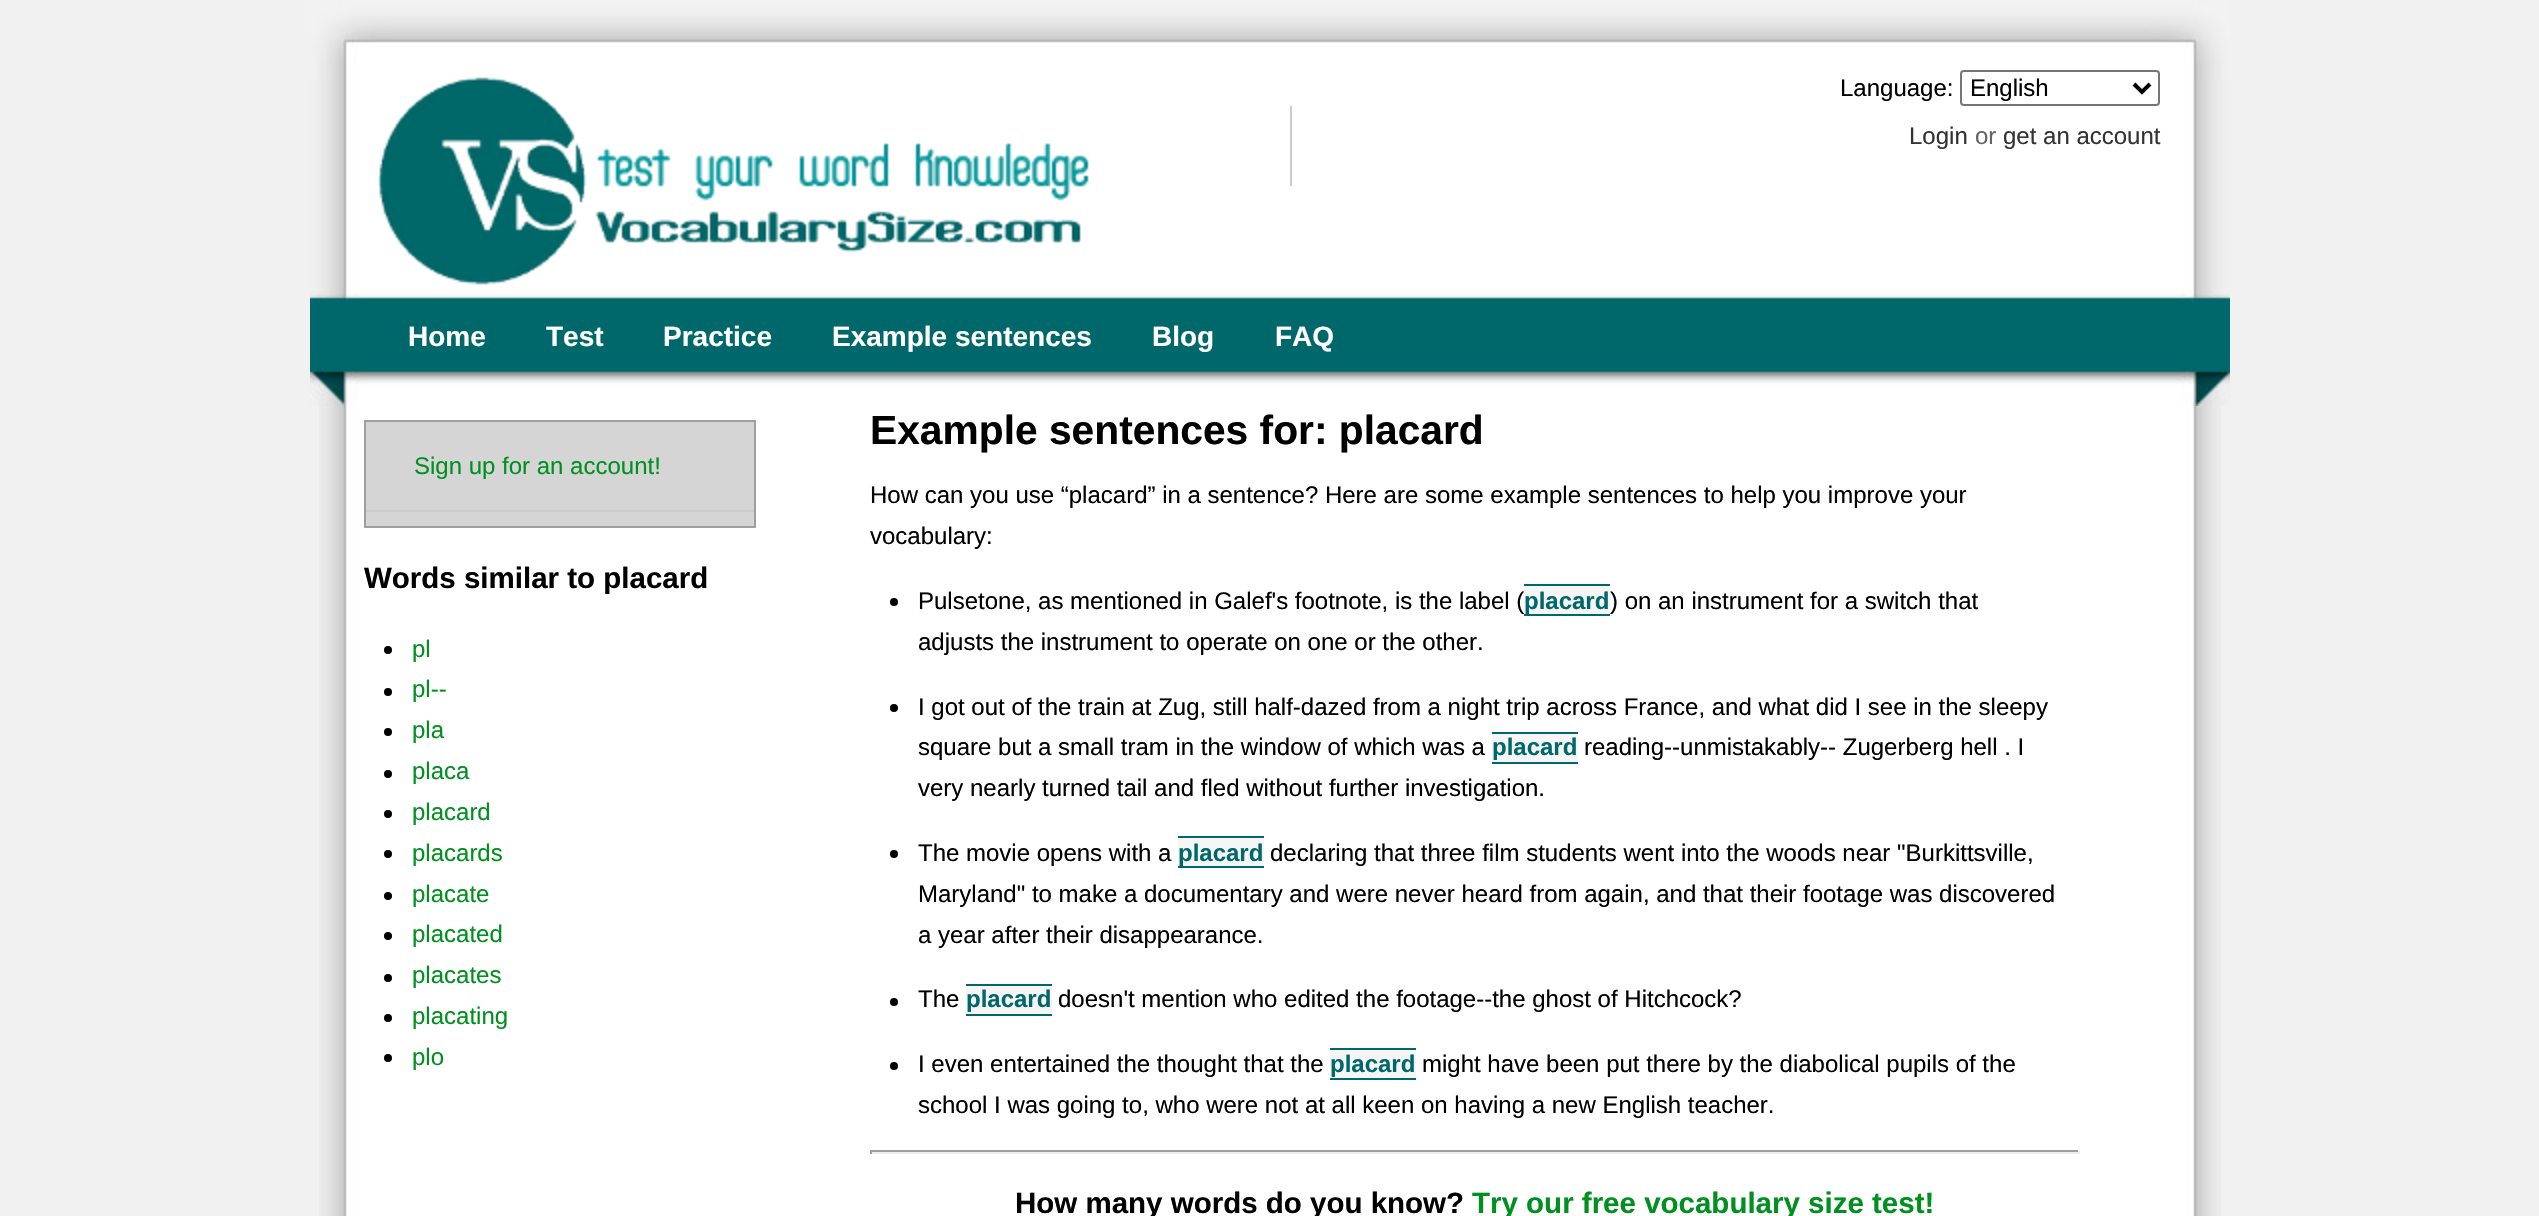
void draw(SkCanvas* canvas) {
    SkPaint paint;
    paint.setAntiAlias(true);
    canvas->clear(0xFFF1F1F1);
    canvas->drawImageRect(SkImages::DeferredFromEncodedData(SkData::MakeFromFileName("img1.png")), SkRect::MakeXYWH(319, 406, 1902, 810), SkSamplingOptions());
    canvas->drawImageRect(SkImages::DeferredFromEncodedData(SkData::MakeFromFileName("img2.png")), SkRect::MakeXYWH(310, 0, 1920, 406), SkSamplingOptions());
    canvas->drawImageRect(SkImages::DeferredFromEncodedData(SkData::MakeFromFileName("img3.png")), SkRect::MakeXYWH(377, 77, 712, 208), SkSamplingOptions());
    SkFont font1(fontMgr->matchFamilyStyle("Liberation Sans", SkFontStyle::Normal()), 24);
    font1.setSubpixel(true);
    paint.setColor(0xFF000000);
    canvas->drawString("Language:", 1840, 96, font1, paint);
    paint.setStyle(SkPaint::kStroke_Style);
    paint.setStrokeWidth(2);
    paint.setColor(0xFF767676);
    canvas->drawRoundRect(SkRect::MakeXYWH(1961, 71, 198, 34), 3, 3, paint);
    paint.setStrokeWidth(4);
    paint.setColor(0xFF000000);
    canvas->drawPath(SkPathBuilder().moveTo(2134, 84).lineTo(2142, 92).lineTo(2150, 84).detach(), paint);
    paint.setStyle(SkPaint::kFill_Style);
    canvas->drawString("English", 1970, 96, font1, paint);
    paint.setColor(0xFFCCCCCC);
    canvas->drawRect(SkRect::MakeXYWH(1290, 106, 2, 80), paint);
    paint.setColor(0xFF333333);
    canvas->drawString("Login", 1909, 144, font1, paint);
    paint.setColor(0xFF646464);
    canvas->drawString("or", 1975, 144, font1, paint);
    paint.setColor(0xFF333333);
    canvas->drawString("get an account", 2003, 144, font1, paint);
    SkFont font2(fontMgr->matchFamilyStyle("Liberation Sans", SkFontStyle::Bold()), 28);
    font2.setSubpixel(true);
    paint.setColor(0xFFFFFFFF);
    canvas->drawString("Home", 408, 346, font2, paint);
    canvas->drawString("Test", 546, 346, font2, paint);
    canvas->drawString("Practice", 663, 346, font2, paint);
    canvas->drawString("Example sentences", 832, 346, font2, paint);
    canvas->drawString("Blog", 1152, 346, font2, paint);
    canvas->drawString("FAQ", 1275, 346, font2, paint);
    paint.setColor(0xFFD5D5D5);
    canvas->drawRect(SkRect::MakeXYWH(365, 421, 390, 106), paint);
    paint.setStyle(SkPaint::kStroke_Style);
    paint.setStrokeWidth(2);
    paint.setColor(0xFF9F9F9F);
    canvas->drawRect(SkRect::MakeXYWH(365, 421, 390, 106), paint);
    paint.setStyle(SkPaint::kFill_Style);
    paint.setColor(0xFF009020);
    canvas->drawString("Sign up for an account!", 414, 474, font1, paint);
    paint.setColor(0xFFCCCCCC);
    canvas->drawRect(SkRect::MakeXYWH(366, 510, 388, 2), paint);
    SkFont font3(fontMgr->matchFamilyStyle("Liberation Sans", SkFontStyle::Bold()), 29.5f);
    font3.setSubpixel(true);
    paint.setColor(0xFF000000);
    canvas->drawString("Words similar to placard", 364, 588, font3, paint);
    canvas->drawCircle(388, 650, 4, paint);
    paint.setColor(0xFF009020);
    canvas->drawString("pl", 412, 657, font1, paint);
    paint.setColor(0xFF000000);
    canvas->drawCircle(388, 692, 4, paint);
    paint.setColor(0xFF009020);
    canvas->drawString("pl--", 412, 697, font1, paint);
    paint.setColor(0xFF000000);
    canvas->drawCircle(388, 732, 4, paint);
    paint.setColor(0xFF009020);
    canvas->drawString("pla", 412, 738, font1, paint);
    paint.setColor(0xFF000000);
    canvas->drawCircle(388, 774, 4, paint);
    paint.setColor(0xFF009020);
    canvas->drawString("placa", 412, 779, font1, paint);
    paint.setColor(0xFF000000);
    canvas->drawCircle(388, 814, 4, paint);
    paint.setColor(0xFF009020);
    canvas->drawString("placard", 412, 820, font1, paint);
    paint.setColor(0xFF000000);
    canvas->drawCircle(388, 854, 4, paint);
    paint.setColor(0xFF009020);
    canvas->drawString("placards", 412, 861, font1, paint);
    paint.setColor(0xFF000000);
    canvas->drawCircle(388, 896, 4, paint);
    paint.setColor(0xFF009020);
    canvas->drawString("placate", 412, 902, font1, paint);
    paint.setColor(0xFF000000);
    canvas->drawCircle(388, 936, 4, paint);
    paint.setColor(0xFF009020);
    canvas->drawString("placated", 412, 942, font1, paint);
    paint.setColor(0xFF000000);
    canvas->drawCircle(388, 978, 4, paint);
    paint.setColor(0xFF009020);
    canvas->drawString("placates", 412, 983, font1, paint);
    paint.setColor(0xFF000000);
    canvas->drawCircle(388, 1018, 4, paint);
    paint.setColor(0xFF009020);
    canvas->drawString("placating", 412, 1024, font1, paint);
    paint.setColor(0xFF000000);
    canvas->drawCircle(388, 1058, 4, paint);
    paint.setColor(0xFF009020);
    canvas->drawString("plo", 412, 1065, font1, paint);
    SkFont font4(fontMgr->matchFamilyStyle("Liberation Sans", SkFontStyle::Bold()), 40.75f);
    font4.setSubpixel(true);
    paint.setColor(0xFF000000);
    canvas->drawString("Example sentences for: placard", 870, 444, font4, paint);
    canvas->drawString("How can you use “placard” in a sentence? Here are some example sentences to help you improve your", 870, 503, font1, paint);
    canvas->drawString("vocabulary:", 870, 544, font1, paint);
    canvas->drawCircle(894, 602, 4, paint);
    canvas->drawString("Pulsetone, as mentioned in Galef's footnote, is the label (", 918, 609, font1, paint);
    paint.setColor(0xFFF5F5F5);
    canvas->drawRect(SkRect::MakeXYWH(1524, 586, 86, 28), paint);
    SkFont font5(fontMgr->matchFamilyStyle("Liberation Sans", SkFontStyle::Bold()), 24);
    font5.setSubpixel(true);
    paint.setColor(0xFF00676A);
    canvas->drawString("placard", 1524, 609, font5, paint);
    canvas->drawRect(SkRect::MakeXYWH(1524, 584, 86, 2), paint);
    canvas->drawRect(SkRect::MakeXYWH(1524, 614, 86, 2), paint);
    paint.setColor(0xFF000000);
    canvas->drawString(") on an instrument for a switch that", 1610, 609, font1, paint);
    canvas->drawString("adjusts the instrument to operate on one or the other.", 918, 650, font1, paint);
    canvas->drawCircle(894, 708, 4, paint);
    canvas->drawString("I got out of the train at Zug, still half-dazed from a night trip across France, and what did I see in the sleepy", 918, 715, font1, paint);
    canvas->drawString("square but a small tram in the window of which was a", 918, 755, font1, paint);
    paint.setColor(0xFFF5F5F5);
    canvas->drawRect(SkRect::MakeXYWH(1492, 734, 86, 28), paint);
    paint.setColor(0xFF00676A);
    canvas->drawString("placard", 1492, 755, font5, paint);
    canvas->drawRect(SkRect::MakeXYWH(1492, 732, 86, 2), paint);
    canvas->drawRect(SkRect::MakeXYWH(1492, 762, 86, 2), paint);
    paint.setColor(0xFF000000);
    canvas->drawString("reading--unmistakably-- Zugerberg hell . I", 1584, 755, font1, paint);
    canvas->drawString("very nearly turned tail and fled without further investigation.", 918, 796, font1, paint);
    canvas->drawCircle(894, 854, 4, paint);
    canvas->drawString("The movie opens with a", 918, 861, font1, paint);
    paint.setColor(0xFFF5F5F5);
    canvas->drawRect(SkRect::MakeXYWH(1178, 838, 86, 28), paint);
    paint.setColor(0xFF00676A);
    canvas->drawString("placard", 1178, 861, font5, paint);
    canvas->drawRect(SkRect::MakeXYWH(1178, 836, 86, 2), paint);
    canvas->drawRect(SkRect::MakeXYWH(1178, 866, 86, 2), paint);
    paint.setColor(0xFF000000);
    canvas->drawString("declaring that three film students went into the woods near \"Burkittsville,", 1270, 861, font1, paint);
    canvas->drawString("Maryland\" to make a documentary and were never heard from again, and that their footage was discovered", 918, 902, font1, paint);
    canvas->drawString("a year after their disappearance.", 918, 943, font1, paint);
    canvas->drawCircle(894, 1002, 4, paint);
    canvas->drawString("The", 918, 1007, font1, paint);
    paint.setColor(0xFFF5F5F5);
    canvas->drawRect(SkRect::MakeXYWH(966, 986, 86, 28), paint);
    paint.setColor(0xFF00676A);
    canvas->drawString("placard", 966, 1007, font5, paint);
    canvas->drawRect(SkRect::MakeXYWH(966, 984, 86, 2), paint);
    canvas->drawRect(SkRect::MakeXYWH(966, 1014, 86, 2), paint);
    paint.setColor(0xFF000000);
    canvas->drawString("doesn't mention who edited the footage--the ghost of Hitchcock?", 1058, 1007, font1, paint);
    canvas->drawCircle(894, 1066, 4, paint);
    canvas->drawString("I even entertained the thought that the", 918, 1072, font1, paint);
    paint.setColor(0xFFF5F5F5);
    canvas->drawRect(SkRect::MakeXYWH(1330, 1050, 86, 28), paint);
    paint.setColor(0xFF00676A);
    canvas->drawString("placard", 1330, 1072, font5, paint);
    canvas->drawRect(SkRect::MakeXYWH(1330, 1048, 86, 2), paint);
    canvas->drawRect(SkRect::MakeXYWH(1330, 1078, 86, 2), paint);
    paint.setColor(0xFF000000);
    canvas->drawString("might have been put there by the diabolical pupils of the", 1422, 1072, font1, paint);
    canvas->drawString("school I was going to, who were not at all keen on having a new English teacher.", 918, 1113, font1, paint);
    paint.setColor(0xFF9F9F9F);
    canvas->drawRect(SkRect::MakeXYWH(870, 1150, 1210, 2), paint);
    paint.setColor(0xFFEEEEEE);
    canvas->drawRect(SkRect::MakeXYWH(2078, 1150, 2, 4), paint);
    canvas->drawRect(SkRect::MakeXYWH(870, 1152, 1210, 2), paint);
    paint.setColor(0xFF9F9F9F);
    canvas->drawRect(SkRect::MakeXYWH(870, 1150, 2, 4), paint);
    paint.setColor(0xFF000000);
    canvas->drawString("How many words do you know?", 1015, 1213, font3, paint);
    paint.setColor(0xFF009020);
    canvas->drawString("Try our free vocabulary size test!", 1472, 1213, font3, paint);
}
